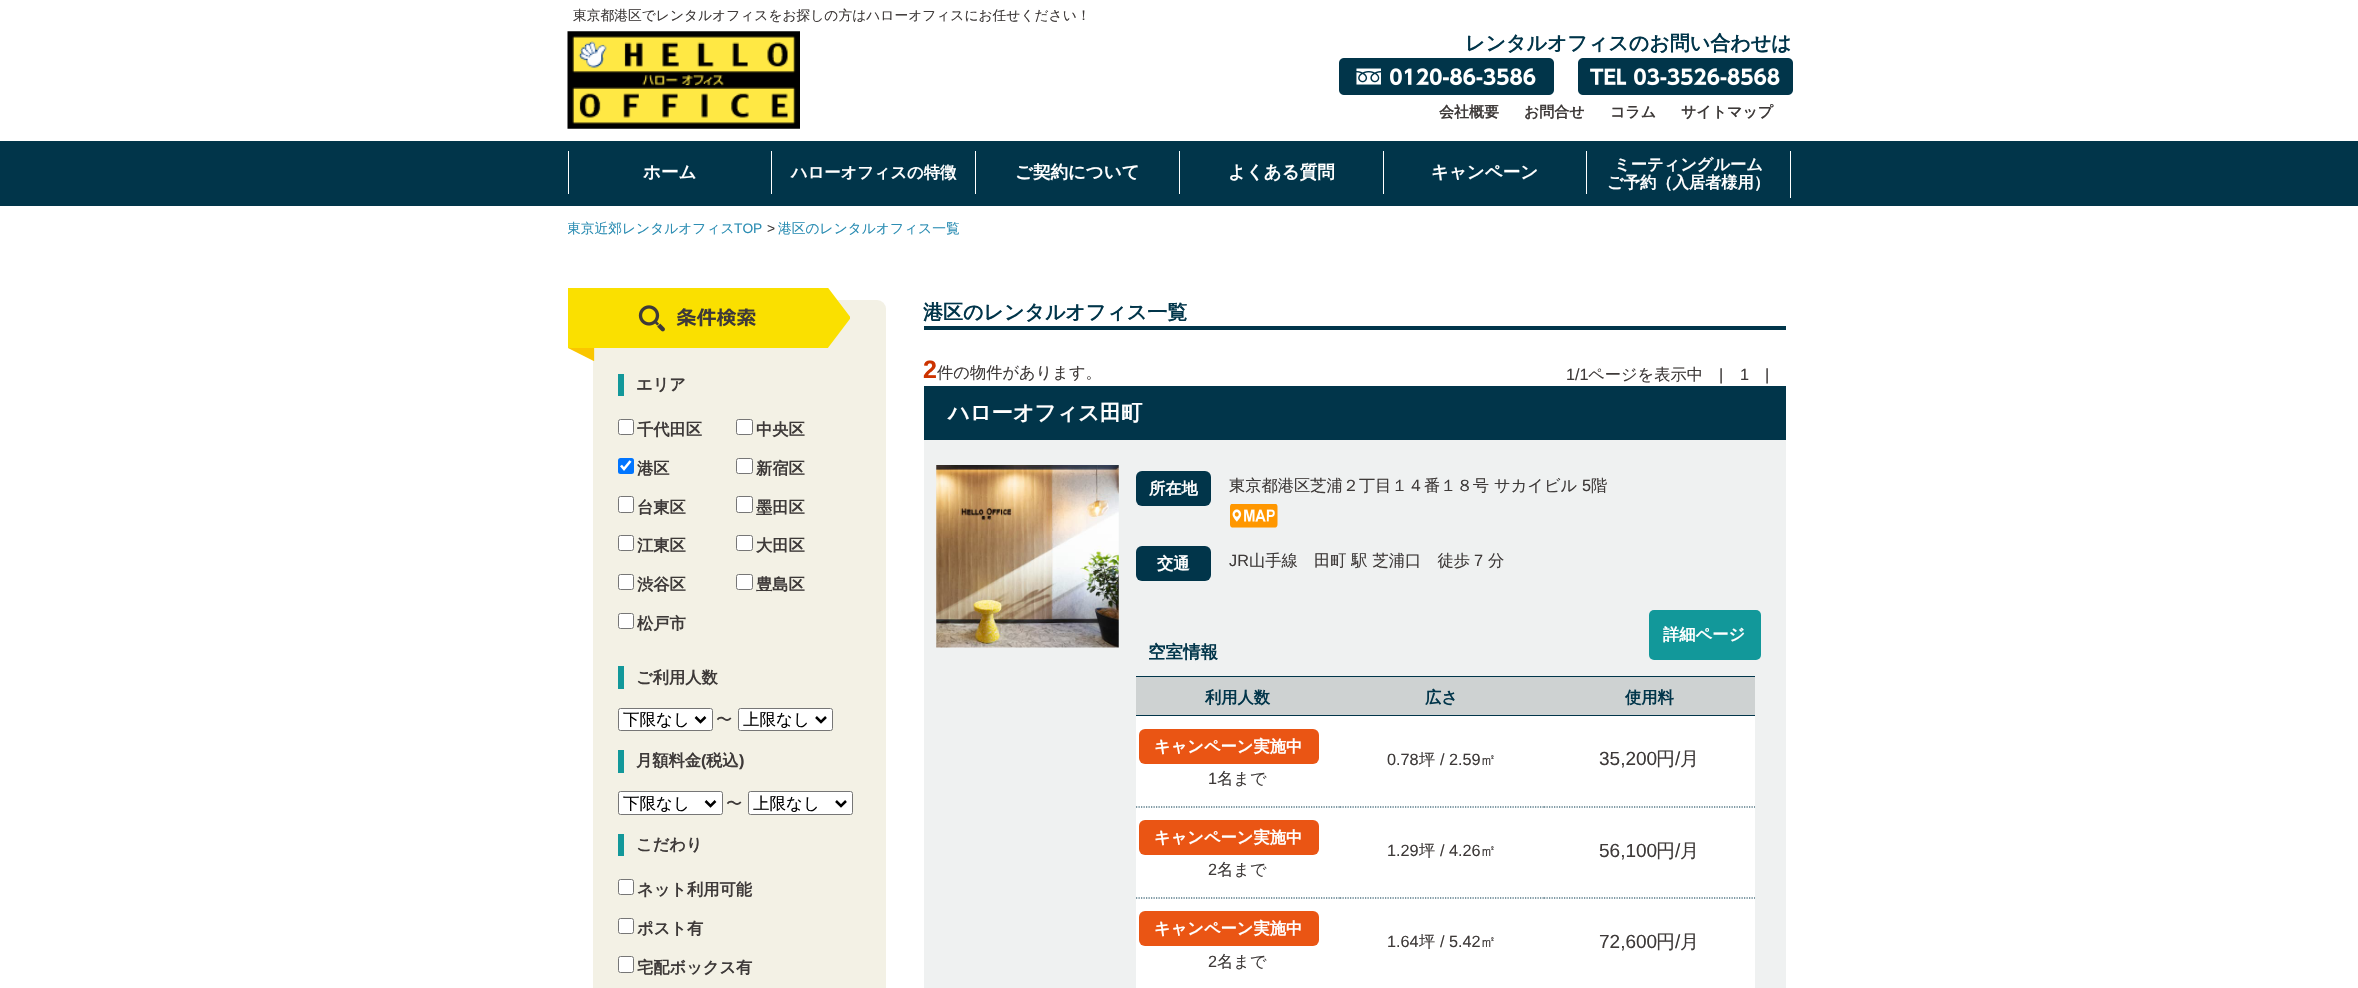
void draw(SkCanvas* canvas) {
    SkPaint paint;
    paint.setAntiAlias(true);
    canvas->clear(0xFFFFFFFF);
    SkFont font1(fontMgr->matchFamilyStyle("WenQuanYi Zen Hei", SkFontStyle(500, SkFontStyle::kNormal_Width, SkFontStyle::kUpright_Slant)), 13.75f);
    font1.setSubpixel(true);
    paint.setColor(0xFF3E3A39);
    canvas->drawString("東京都港区でレンタルオフィスをお探しの方はハローオフィスにお任せください！", 573, 20, font1, paint);
    canvas->drawImageRect(SkImages::DeferredFromEncodedData(SkData::MakeFromFileName("img1.png")), SkRect::MakeXYWH(567, 31, 233, 98), SkSamplingOptions());
    SkFont font2(fontMgr->matchFamilyStyle("WenQuanYi Zen Hei", SkFontStyle::Bold()), 20);
    font2.setSubpixel(true);
    paint.setColor(0xFF01354A);
    canvas->drawString("レンタルオフィスのお問い合わせは", 1465, 50, font2, paint);
    canvas->drawImageRect(SkImages::DeferredFromEncodedData(SkData::MakeFromFileName("img2.png")), SkRect::MakeXYWH(1339, 58, 215, 37), SkSamplingOptions());
    canvas->drawImageRect(SkImages::DeferredFromEncodedData(SkData::MakeFromFileName("img3.png")), SkRect::MakeXYWH(1578, 58, 215, 37), SkSamplingOptions());
    SkFont font3(fontMgr->matchFamilyStyle("WenQuanYi Zen Hei", SkFontStyle::Bold()), 15);
    font3.setSubpixel(true);
    paint.setColor(0xFF3E3A39);
    canvas->drawString("会社概要", 1439, 117, font3, paint);
    canvas->drawString("お問合せ", 1524, 117, font3, paint);
    canvas->drawString("コラム", 1610, 117, font3, paint);
    canvas->drawString("サイトマップ", 1681, 117, font3, paint);
    paint.setColor(0xFF01354A);
    canvas->drawRect(SkRect::MakeXYWH(0, 141, 2358, 65), paint);
    paint.setColor(0xFFFFFFFF);
    canvas->drawRect(SkRect::MakeXYWH(771, 151, 1, 43), paint);
    canvas->drawRect(SkRect::MakeXYWH(568, 151, 1, 43), paint);
    SkFont font4(fontMgr->matchFamilyStyle("WenQuanYi Zen Hei", SkFontStyle::Bold()), 17.5f);
    font4.setSubpixel(true);
    canvas->drawString("ホーム", 643, 178, font4, paint);
    canvas->drawRect(SkRect::MakeXYWH(975, 151, 1, 43), paint);
    SkFont font5(fontMgr->matchFamilyStyle("WenQuanYi Zen Hei", SkFontStyle::Bold()), 16.25f);
    font5.setSubpixel(true);
    canvas->drawString("ハローオフィスの特徴", 791, 178, font5, paint);
    canvas->drawRect(SkRect::MakeXYWH(1179, 151, 1, 43), paint);
    canvas->drawString("ご契約について", 1015, 178, font4, paint);
    canvas->drawRect(SkRect::MakeXYWH(1383, 151, 1, 43), paint);
    canvas->drawString("よくある質問", 1228, 178, font4, paint);
    canvas->drawRect(SkRect::MakeXYWH(1586, 151, 1, 43), paint);
    canvas->drawString("キャンペーン", 1431, 178, font4, paint);
    canvas->drawRect(SkRect::MakeXYWH(1790, 151, 1, 47), paint);
    canvas->drawString("ミーティングルーム", 1614, 170, font5, paint);
    canvas->drawString("ご予約（入居者様用）", 1607, 188, font5, paint);
    canvas->save();
    canvas->clipRect(SkRect::MakeXYWH(568, 206, 1225, 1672));
    paint.setColor(0xFF2B8DB3);
    canvas->drawString("東京近郊レンタルオフィス", 567, 233, font1, paint);
    canvas->restore();
    SkFont font6(fontMgr->matchFamilyStyle("Liberation Sans", SkFontStyle::Normal()), 13.75f);
    font6.setSubpixel(true);
    canvas->drawString("TOP", 734, 233, font6, paint);
    paint.setColor(0xFF3E3A39);
    canvas->drawString(">", 767, 233, font6, paint);
    paint.setColor(0xFF2B8DB3);
    canvas->drawString("港区のレンタルオフィス一覧", 778, 233, font1, paint);
    paint.setColor(0xFFF3F1E5);
    canvas->drawRoundRect(SkRect::MakeXYWH(593, 300, 293, 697), 9, 9, paint);
    canvas->drawImageRect(SkImages::DeferredFromEncodedData(SkData::MakeFromFileName("img4.png")), SkRect::MakeXYWH(568, 288, 282, 73), SkSamplingOptions());
    paint.setColor(0xFF12989A);
    canvas->drawRect(SkRect::MakeXYWH(618, 374, 6, 22), paint);
    paint.setColor(0xFF3E3A39);
    canvas->drawString("エリア", 636, 390, font5, paint);
    paint.setColor(0xFFFFFFFF);
    canvas->drawRoundRect(SkRect::MakeXYWH(618.5f, 419.5f, 15, 15), 2, 2, paint);
    paint.setStyle(SkPaint::kStroke_Style);
    paint.setStrokeWidth(1);
    paint.setColor(0xFF767676);
    canvas->drawRoundRect(SkRect::MakeXYWH(618.5f, 419.5f, 15, 15), 2, 2, paint);
    paint.setStyle(SkPaint::kFill_Style);
    paint.setColor(0xFF3E3A39);
    canvas->drawString("千代田区", 637, 435, font5, paint);
    paint.setColor(0xFFFFFFFF);
    canvas->drawRoundRect(SkRect::MakeXYWH(736.5f, 419.5f, 16, 15), 2, 2, paint);
    paint.setStyle(SkPaint::kStroke_Style);
    paint.setColor(0xFF767676);
    canvas->drawRoundRect(SkRect::MakeXYWH(736.5f, 419.5f, 16, 15), 2, 2, paint);
    paint.setStyle(SkPaint::kFill_Style);
    paint.setColor(0xFF3E3A39);
    canvas->drawString("中央区", 756, 435, font5, paint);
    paint.setColor(0xFF0075FF);
    canvas->drawRoundRect(SkRect::MakeXYWH(618, 458, 16, 16), 2.5f, 2.5f, paint);
    paint.setStyle(SkPaint::kStroke_Style);
    paint.setStrokeWidth(2.6f);
    paint.setColor(0xFFFFFFFF);
    canvas->drawPath(SkPathBuilder().moveTo(621, 465.5f).lineTo(624, 469).lineTo(630.5f, 461).detach(), paint);
    paint.setStyle(SkPaint::kFill_Style);
    paint.setColor(0xFF3E3A39);
    canvas->drawString("港区", 637, 474, font5, paint);
    paint.setColor(0xFFFFFFFF);
    canvas->drawRoundRect(SkRect::MakeXYWH(736.5f, 458.5f, 16, 15), 2, 2, paint);
    paint.setStyle(SkPaint::kStroke_Style);
    paint.setStrokeWidth(1);
    paint.setColor(0xFF767676);
    canvas->drawRoundRect(SkRect::MakeXYWH(736.5f, 458.5f, 16, 15), 2, 2, paint);
    paint.setStyle(SkPaint::kFill_Style);
    paint.setColor(0xFF3E3A39);
    canvas->drawString("新宿区", 756, 474, font5, paint);
    paint.setColor(0xFFFFFFFF);
    canvas->drawRoundRect(SkRect::MakeXYWH(618.5f, 496.5f, 15, 16), 2, 2, paint);
    paint.setStyle(SkPaint::kStroke_Style);
    paint.setColor(0xFF767676);
    canvas->drawRoundRect(SkRect::MakeXYWH(618.5f, 496.5f, 15, 16), 2, 2, paint);
    paint.setStyle(SkPaint::kFill_Style);
    paint.setColor(0xFF3E3A39);
    canvas->drawString("台東区", 637, 513, font5, paint);
    paint.setColor(0xFFFFFFFF);
    canvas->drawRoundRect(SkRect::MakeXYWH(736.5f, 496.5f, 16, 16), 2, 2, paint);
    paint.setStyle(SkPaint::kStroke_Style);
    paint.setColor(0xFF767676);
    canvas->drawRoundRect(SkRect::MakeXYWH(736.5f, 496.5f, 16, 16), 2, 2, paint);
    paint.setStyle(SkPaint::kFill_Style);
    paint.setColor(0xFF3E3A39);
    canvas->drawString("墨田区", 756, 513, font5, paint);
    paint.setColor(0xFFFFFFFF);
    canvas->drawRoundRect(SkRect::MakeXYWH(618.5f, 535.5f, 15, 15), 2, 2, paint);
    paint.setStyle(SkPaint::kStroke_Style);
    paint.setColor(0xFF767676);
    canvas->drawRoundRect(SkRect::MakeXYWH(618.5f, 535.5f, 15, 15), 2, 2, paint);
    paint.setStyle(SkPaint::kFill_Style);
    paint.setColor(0xFF3E3A39);
    canvas->drawString("江東区", 637, 551, font5, paint);
    paint.setColor(0xFFFFFFFF);
    canvas->drawRoundRect(SkRect::MakeXYWH(736.5f, 535.5f, 16, 15), 2, 2, paint);
    paint.setStyle(SkPaint::kStroke_Style);
    paint.setColor(0xFF767676);
    canvas->drawRoundRect(SkRect::MakeXYWH(736.5f, 535.5f, 16, 15), 2, 2, paint);
    paint.setStyle(SkPaint::kFill_Style);
    paint.setColor(0xFF3E3A39);
    canvas->drawString("大田区", 756, 551, font5, paint);
    paint.setColor(0xFFFFFFFF);
    canvas->drawRoundRect(SkRect::MakeXYWH(618.5f, 574.5f, 15, 15), 2, 2, paint);
    paint.setStyle(SkPaint::kStroke_Style);
    paint.setColor(0xFF767676);
    canvas->drawRoundRect(SkRect::MakeXYWH(618.5f, 574.5f, 15, 15), 2, 2, paint);
    paint.setStyle(SkPaint::kFill_Style);
    paint.setColor(0xFF3E3A39);
    canvas->drawString("渋谷区", 637, 590, font5, paint);
    paint.setColor(0xFFFFFFFF);
    canvas->drawRoundRect(SkRect::MakeXYWH(736.5f, 574.5f, 16, 15), 2, 2, paint);
    paint.setStyle(SkPaint::kStroke_Style);
    paint.setColor(0xFF767676);
    canvas->drawRoundRect(SkRect::MakeXYWH(736.5f, 574.5f, 16, 15), 2, 2, paint);
    paint.setStyle(SkPaint::kFill_Style);
    paint.setColor(0xFF3E3A39);
    canvas->drawString("豊島区", 756, 590, font5, paint);
    paint.setColor(0xFFFFFFFF);
    canvas->drawRoundRect(SkRect::MakeXYWH(618.5f, 613.5f, 15, 15), 2, 2, paint);
    paint.setStyle(SkPaint::kStroke_Style);
    paint.setColor(0xFF767676);
    canvas->drawRoundRect(SkRect::MakeXYWH(618.5f, 613.5f, 15, 15), 2, 2, paint);
    paint.setStyle(SkPaint::kFill_Style);
    paint.setColor(0xFF3E3A39);
    canvas->drawString("松戸市", 637, 629, font5, paint);
    paint.setColor(0xFF12989A);
    canvas->drawRect(SkRect::MakeXYWH(618, 666, 6, 23), paint);
    paint.setColor(0xFF3E3A39);
    canvas->drawString("ご利用人数", 636, 683, font5, paint);
    paint.setColor(0xFFFFFFFF);
    canvas->drawRoundRect(SkRect::MakeXYWH(618.5f, 708.5f, 94, 22), 2, 2, paint);
    paint.setStyle(SkPaint::kStroke_Style);
    paint.setColor(0xFF767676);
    canvas->drawRoundRect(SkRect::MakeXYWH(618.5f, 708.5f, 94, 22), 2, 2, paint);
    paint.setStrokeWidth(2.5f);
    paint.setColor(0xFF000000);
    canvas->drawPath(SkPathBuilder().moveTo(695.5f, 717).lineTo(700.5f, 722).lineTo(705.5f, 717).detach(), paint);
    SkFont font7(fontMgr->matchFamilyStyle("WenQuanYi Zen Hei", SkFontStyle(500, SkFontStyle::kNormal_Width, SkFontStyle::kUpright_Slant)), 16.5f);
    font7.setSubpixel(true);
    paint.setStyle(SkPaint::kFill_Style);
    canvas->drawString("下限なし", 623, 725, font7, paint);
    SkFont font8(fontMgr->matchFamilyStyle("WenQuanYi Zen Hei", SkFontStyle(500, SkFontStyle::kNormal_Width, SkFontStyle::kUpright_Slant)), 16.25f);
    font8.setSubpixel(true);
    paint.setColor(0xFF3E3A39);
    canvas->drawString("〜", 716, 725, font8, paint);
    paint.setColor(0xFFFFFFFF);
    canvas->drawRoundRect(SkRect::MakeXYWH(738.5f, 708.5f, 94, 22), 2, 2, paint);
    paint.setStyle(SkPaint::kStroke_Style);
    paint.setStrokeWidth(1);
    paint.setColor(0xFF767676);
    canvas->drawRoundRect(SkRect::MakeXYWH(738.5f, 708.5f, 94, 22), 2, 2, paint);
    paint.setStrokeWidth(2.5f);
    paint.setColor(0xFF000000);
    canvas->drawPath(SkPathBuilder().moveTo(816, 717).lineTo(821, 722).lineTo(826, 717).detach(), paint);
    paint.setStyle(SkPaint::kFill_Style);
    canvas->drawString("上限なし", 743, 725, font7, paint);
    paint.setColor(0xFF12989A);
    canvas->drawRect(SkRect::MakeXYWH(618, 750, 6, 23), paint);
    paint.setColor(0xFF3E3A39);
    canvas->drawString("月額料金", 636, 766, font5, paint);
    SkFont font9(fontMgr->matchFamilyStyle("Liberation Sans", SkFontStyle::Bold()), 16.25f);
    font9.setSubpixel(true);
    canvas->drawString("(", 701, 766, font9, paint);
    canvas->drawString("税込", 706, 766, font5, paint);
    canvas->drawString(")", 739, 766, font9, paint);
    paint.setColor(0xFFFFFFFF);
    canvas->drawRoundRect(SkRect::MakeXYWH(618.5f, 791.5f, 104, 23), 2, 2, paint);
    paint.setStyle(SkPaint::kStroke_Style);
    paint.setStrokeWidth(1);
    paint.setColor(0xFF767676);
    canvas->drawRoundRect(SkRect::MakeXYWH(618.5f, 791.5f, 104, 23), 2, 2, paint);
    paint.setStrokeWidth(2.5f);
    paint.setColor(0xFF000000);
    canvas->drawPath(SkPathBuilder().moveTo(705.5f, 801).lineTo(710.5f, 806).lineTo(715.5f, 801).detach(), paint);
    paint.setStyle(SkPaint::kFill_Style);
    canvas->drawString("下限なし", 623, 809, font7, paint);
    paint.setColor(0xFF3E3A39);
    canvas->drawString("〜", 726, 809, font8, paint);
    paint.setColor(0xFFFFFFFF);
    canvas->drawRoundRect(SkRect::MakeXYWH(748.5f, 791.5f, 104, 23), 2, 2, paint);
    paint.setStyle(SkPaint::kStroke_Style);
    paint.setStrokeWidth(1);
    paint.setColor(0xFF767676);
    canvas->drawRoundRect(SkRect::MakeXYWH(748.5f, 791.5f, 104, 23), 2, 2, paint);
    paint.setStrokeWidth(2.5f);
    paint.setColor(0xFF000000);
    canvas->drawPath(SkPathBuilder().moveTo(836, 801).lineTo(841, 806).lineTo(846, 801).detach(), paint);
    paint.setStyle(SkPaint::kFill_Style);
    canvas->drawString("上限なし", 753, 809, font7, paint);
    paint.setColor(0xFF12989A);
    canvas->drawRect(SkRect::MakeXYWH(618, 834, 6, 22), paint);
    paint.setColor(0xFF3E3A39);
    canvas->drawString("こだわり", 636, 850, font5, paint);
    paint.setColor(0xFFFFFFFF);
    canvas->drawRoundRect(SkRect::MakeXYWH(618.5f, 879.5f, 15, 15), 2, 2, paint);
    paint.setStyle(SkPaint::kStroke_Style);
    paint.setStrokeWidth(1);
    paint.setColor(0xFF767676);
    canvas->drawRoundRect(SkRect::MakeXYWH(618.5f, 879.5f, 15, 15), 2, 2, paint);
    paint.setStyle(SkPaint::kFill_Style);
    paint.setColor(0xFF3E3A39);
    canvas->drawString("ネット利用可能", 637, 895, font5, paint);
    paint.setColor(0xFFFFFFFF);
    canvas->drawRoundRect(SkRect::MakeXYWH(618.5f, 918.5f, 15, 15), 2, 2, paint);
    paint.setStyle(SkPaint::kStroke_Style);
    paint.setColor(0xFF767676);
    canvas->drawRoundRect(SkRect::MakeXYWH(618.5f, 918.5f, 15, 15), 2, 2, paint);
    paint.setStyle(SkPaint::kFill_Style);
    paint.setColor(0xFF3E3A39);
    canvas->drawString("ポスト有", 637, 934, font5, paint);
    paint.setColor(0xFFFFFFFF);
    canvas->drawRoundRect(SkRect::MakeXYWH(618.5f, 956.5f, 15, 16), 2, 2, paint);
    paint.setStyle(SkPaint::kStroke_Style);
    paint.setColor(0xFF767676);
    canvas->drawRoundRect(SkRect::MakeXYWH(618.5f, 956.5f, 15, 16), 2, 2, paint);
    paint.setStyle(SkPaint::kFill_Style);
    paint.setColor(0xFF3E3A39);
    canvas->drawString("宅配ボックス有", 637, 973, font5, paint);
    paint.setColor(0xFF01354A);
    canvas->drawRect(SkRect::MakeXYWH(924, 326, 862, 4), paint);
    canvas->drawString("港区のレンタルオフィス一覧", 923, 319, font2, paint);
    SkFont font10(fontMgr->matchFamilyStyle("Liberation Sans", SkFontStyle::Bold()), 25);
    font10.setSubpixel(true);
    paint.setColor(0xFFCC3300);
    canvas->drawString("2", 923, 378, font10, paint);
    paint.setColor(0xFF3E3A39);
    canvas->drawString("件の物件があります。", 937, 378, font8, paint);
    SkFont font11(fontMgr->matchFamilyStyle("Liberation Sans", SkFontStyle::Normal()), 16.25f);
    font11.setSubpixel(true);
    canvas->drawString("1/1", 1566, 380, font11, paint);
    canvas->drawString("ページを表示中", 1588, 380, font8, paint);
    canvas->drawString("|", 1719, 380, font11, paint);
    canvas->drawString("1", 1740, 380, font11, paint);
    canvas->drawString("|", 1765, 380, font11, paint);
    paint.setColor(0xFFEFF1F1);
    canvas->drawRect(SkRect::MakeXYWH(924, 440, 862, 548), paint);
    paint.setColor(0xFF01354A);
    canvas->drawRect(SkRect::MakeXYWH(924, 386, 862, 54), paint);
    SkFont font12(fontMgr->matchFamilyStyle("WenQuanYi Zen Hei", SkFontStyle::Bold()), 21.25f);
    font12.setSubpixel(true);
    paint.setColor(0xFFFFFFFF);
    canvas->drawString("ハローオフィス田町", 948, 420, font12, paint);
    canvas->drawImageRect(SkImages::DeferredFromEncodedData(SkData::MakeFromFileName("img5.png")), SkRect::MakeXYWH(936, 465, 183, 183), SkSamplingOptions());
    paint.setColor(0xFF01354A);
    canvas->drawRoundRect(SkRect::MakeXYWH(1136, 471, 75, 35), 6, 6, paint);
    paint.setColor(0xFFFFFFFF);
    canvas->drawString("所在地", 1149, 494, font5, paint);
    paint.setColor(0xFF3E3A39);
    canvas->drawString("東京都港区芝浦２丁目１４番１８号", 1229, 491, font8, paint);
    canvas->drawString("サカイビル", 1494, 491, font8, paint);
    canvas->drawString("5", 1582, 491, font11, paint);
    canvas->drawString("階", 1591, 491, font8, paint);
    canvas->drawImageRect(SkImages::DeferredFromEncodedData(SkData::MakeFromFileName("img6.png")), SkRect::MakeXYWH(1230, 504, 48, 24), SkSamplingOptions());
    paint.setColor(0xFF01354A);
    canvas->drawRoundRect(SkRect::MakeXYWH(1136, 546, 75, 35), 6, 6, paint);
    paint.setColor(0xFFFFFFFF);
    canvas->drawString("交通", 1157, 569, font5, paint);
    paint.setColor(0xFF3E3A39);
    canvas->drawString("JR", 1229, 566, font11, paint);
    canvas->drawString("山手線　田町 駅 芝浦口　徒歩", 1249, 566, font8, paint);
    canvas->drawString("7", 1474, 566, font11, paint);
    canvas->drawString("分", 1488, 566, font8, paint);
    paint.setColor(0xFF12989A);
    canvas->drawRoundRect(SkRect::MakeXYWH(1649, 610, 112, 50), 5, 5, paint);
    paint.setColor(0xFFFFFFFF);
    canvas->drawString("詳細ページ", 1663, 640, font5, paint);
    paint.setColor(0xFF01354A);
    canvas->drawString("空室情報", 1148, 658, font4, paint);
    paint.setColor(0xFFCED2D2);
    canvas->drawRect(SkRect::MakeXYWH(1136, 677, 619, 38), paint);
    paint.setColor(0xFF01354A);
    canvas->drawRect(SkRect::MakeXYWH(1136, 676, 619, 1), paint);
    canvas->drawRect(SkRect::MakeXYWH(1136, 715, 619, 1), paint);
    canvas->drawString("利用人数", 1205, 703, font5, paint);
    canvas->drawString("広さ", 1425, 703, font5, paint);
    canvas->drawString("使用料", 1625, 703, font5, paint);
    paint.setColor(0xFFFFFFFF);
    canvas->drawRect(SkRect::MakeXYWH(1136, 716, 619, 92), paint);
    paint.setStyle(SkPaint::kStroke_Style);
    paint.setStrokeWidth(1.2f);
    paint.setColor(0xFF01354A);
    paint.setPathEffect(SkDashPathEffect::Make({{1.25f, 1.25f}}, 0));
    canvas->drawPath(SkPathBuilder().moveTo(1136, 807).lineTo(1340, 807).detach(), paint);
    paint.setPathEffect(nullptr);
    paint.setStyle(SkPaint::kFill_Style);
    paint.setColor(0xFFEA5514);
    canvas->drawRoundRect(SkRect::MakeXYWH(1139, 729, 180, 35), 6, 6, paint);
    paint.setColor(0xFFFFFFFF);
    canvas->drawString("キャンペーン実施中", 1154, 752, font5, paint);
    paint.setColor(0xFF3E3A39);
    canvas->drawString("1", 1208, 784, font11, paint);
    canvas->drawString("名まで", 1217, 784, font8, paint);
    paint.setStyle(SkPaint::kStroke_Style);
    paint.setColor(0xFF01354A);
    paint.setPathEffect(SkDashPathEffect::Make({{1.25f, 1.25f}}, 0));
    canvas->drawPath(SkPathBuilder().moveTo(1340, 807).lineTo(1544, 807).detach(), paint);
    paint.setPathEffect(nullptr);
    paint.setStyle(SkPaint::kFill_Style);
    paint.setColor(0xFF3E3A39);
    canvas->drawString("0.78", 1387, 765, font11, paint);
    canvas->drawString("坪", 1419, 765, font8, paint);
    canvas->drawString("/ 2.59", 1440, 765, font11, paint);
    canvas->drawString("㎡", 1480, 765, font8, paint);
    paint.setStyle(SkPaint::kStroke_Style);
    paint.setColor(0xFF01354A);
    paint.setPathEffect(SkDashPathEffect::Make({{1.25f, 1.25f}}, 0));
    canvas->drawPath(SkPathBuilder().moveTo(1544, 807).lineTo(1755, 807).detach(), paint);
    paint.setPathEffect(nullptr);
    SkFont font13(fontMgr->matchFamilyStyle("Liberation Sans", SkFontStyle::Normal()), 19);
    font13.setSubpixel(true);
    paint.setStyle(SkPaint::kFill_Style);
    paint.setColor(0xFF3E3A39);
    canvas->drawString("35,200", 1599, 765, font13, paint);
    SkFont font14(fontMgr->matchFamilyStyle("WenQuanYi Zen Hei", SkFontStyle(500, SkFontStyle::kNormal_Width, SkFontStyle::kUpright_Slant)), 19);
    font14.setSubpixel(true);
    canvas->drawString("円", 1656, 765, font14, paint);
    canvas->drawString("/", 1675, 765, font13, paint);
    canvas->drawString("月", 1680, 765, font14, paint);
    paint.setColor(0xFFFFFFFF);
    canvas->drawRect(SkRect::MakeXYWH(1136, 808, 619, 91), paint);
    paint.setStyle(SkPaint::kStroke_Style);
    paint.setColor(0xFF01354A);
    paint.setPathEffect(SkDashPathEffect::Make({{1.25f, 1.25f}}, 0));
    canvas->drawPath(SkPathBuilder().moveTo(1136, 898).lineTo(1340, 898).detach(), paint);
    paint.setPathEffect(nullptr);
    paint.setStyle(SkPaint::kFill_Style);
    paint.setColor(0xFFEA5514);
    canvas->drawRoundRect(SkRect::MakeXYWH(1139, 820, 180, 35), 6, 6, paint);
    paint.setColor(0xFFFFFFFF);
    canvas->drawString("キャンペーン実施中", 1154, 843, font5, paint);
    paint.setColor(0xFF3E3A39);
    canvas->drawString("2", 1208, 875, font11, paint);
    canvas->drawString("名まで", 1217, 875, font8, paint);
    paint.setStyle(SkPaint::kStroke_Style);
    paint.setColor(0xFF01354A);
    paint.setPathEffect(SkDashPathEffect::Make({{1.25f, 1.25f}}, 0));
    canvas->drawPath(SkPathBuilder().moveTo(1340, 898).lineTo(1544, 898).detach(), paint);
    paint.setPathEffect(nullptr);
    paint.setStyle(SkPaint::kFill_Style);
    paint.setColor(0xFF3E3A39);
    canvas->drawString("1.29", 1387, 856, font11, paint);
    canvas->drawString("坪", 1419, 856, font8, paint);
    canvas->drawString("/ 4.26", 1440, 856, font11, paint);
    canvas->drawString("㎡", 1480, 856, font8, paint);
    paint.setStyle(SkPaint::kStroke_Style);
    paint.setColor(0xFF01354A);
    paint.setPathEffect(SkDashPathEffect::Make({{1.25f, 1.25f}}, 0));
    canvas->drawPath(SkPathBuilder().moveTo(1544, 898).lineTo(1755, 898).detach(), paint);
    paint.setPathEffect(nullptr);
    paint.setStyle(SkPaint::kFill_Style);
    paint.setColor(0xFF3E3A39);
    canvas->drawString("56,100", 1599, 857, font13, paint);
    canvas->drawString("円", 1656, 857, font14, paint);
    canvas->drawString("/", 1675, 857, font13, paint);
    canvas->drawString("月", 1680, 857, font14, paint);
    paint.setColor(0xFFFFFFFF);
    canvas->drawRect(SkRect::MakeXYWH(1136, 899, 619, 89), paint);
    paint.setColor(0xFFEA5514);
    canvas->drawRoundRect(SkRect::MakeXYWH(1139, 911, 180, 35), 6, 6, paint);
    paint.setColor(0xFFFFFFFF);
    canvas->drawString("キャンペーン実施中", 1154, 934, font5, paint);
    paint.setColor(0xFF3E3A39);
    canvas->drawString("2", 1208, 967, font11, paint);
    canvas->drawString("名まで", 1217, 967, font8, paint);
    canvas->drawString("1.64", 1387, 947, font11, paint);
    canvas->drawString("坪", 1419, 947, font8, paint);
    canvas->drawString("/ 5.42", 1440, 947, font11, paint);
    canvas->drawString("㎡", 1480, 947, font8, paint);
    canvas->drawString("72,600", 1599, 948, font13, paint);
    canvas->drawString("円", 1656, 948, font14, paint);
    canvas->drawString("/", 1675, 948, font13, paint);
    canvas->drawString("月", 1680, 948, font14, paint);
}
